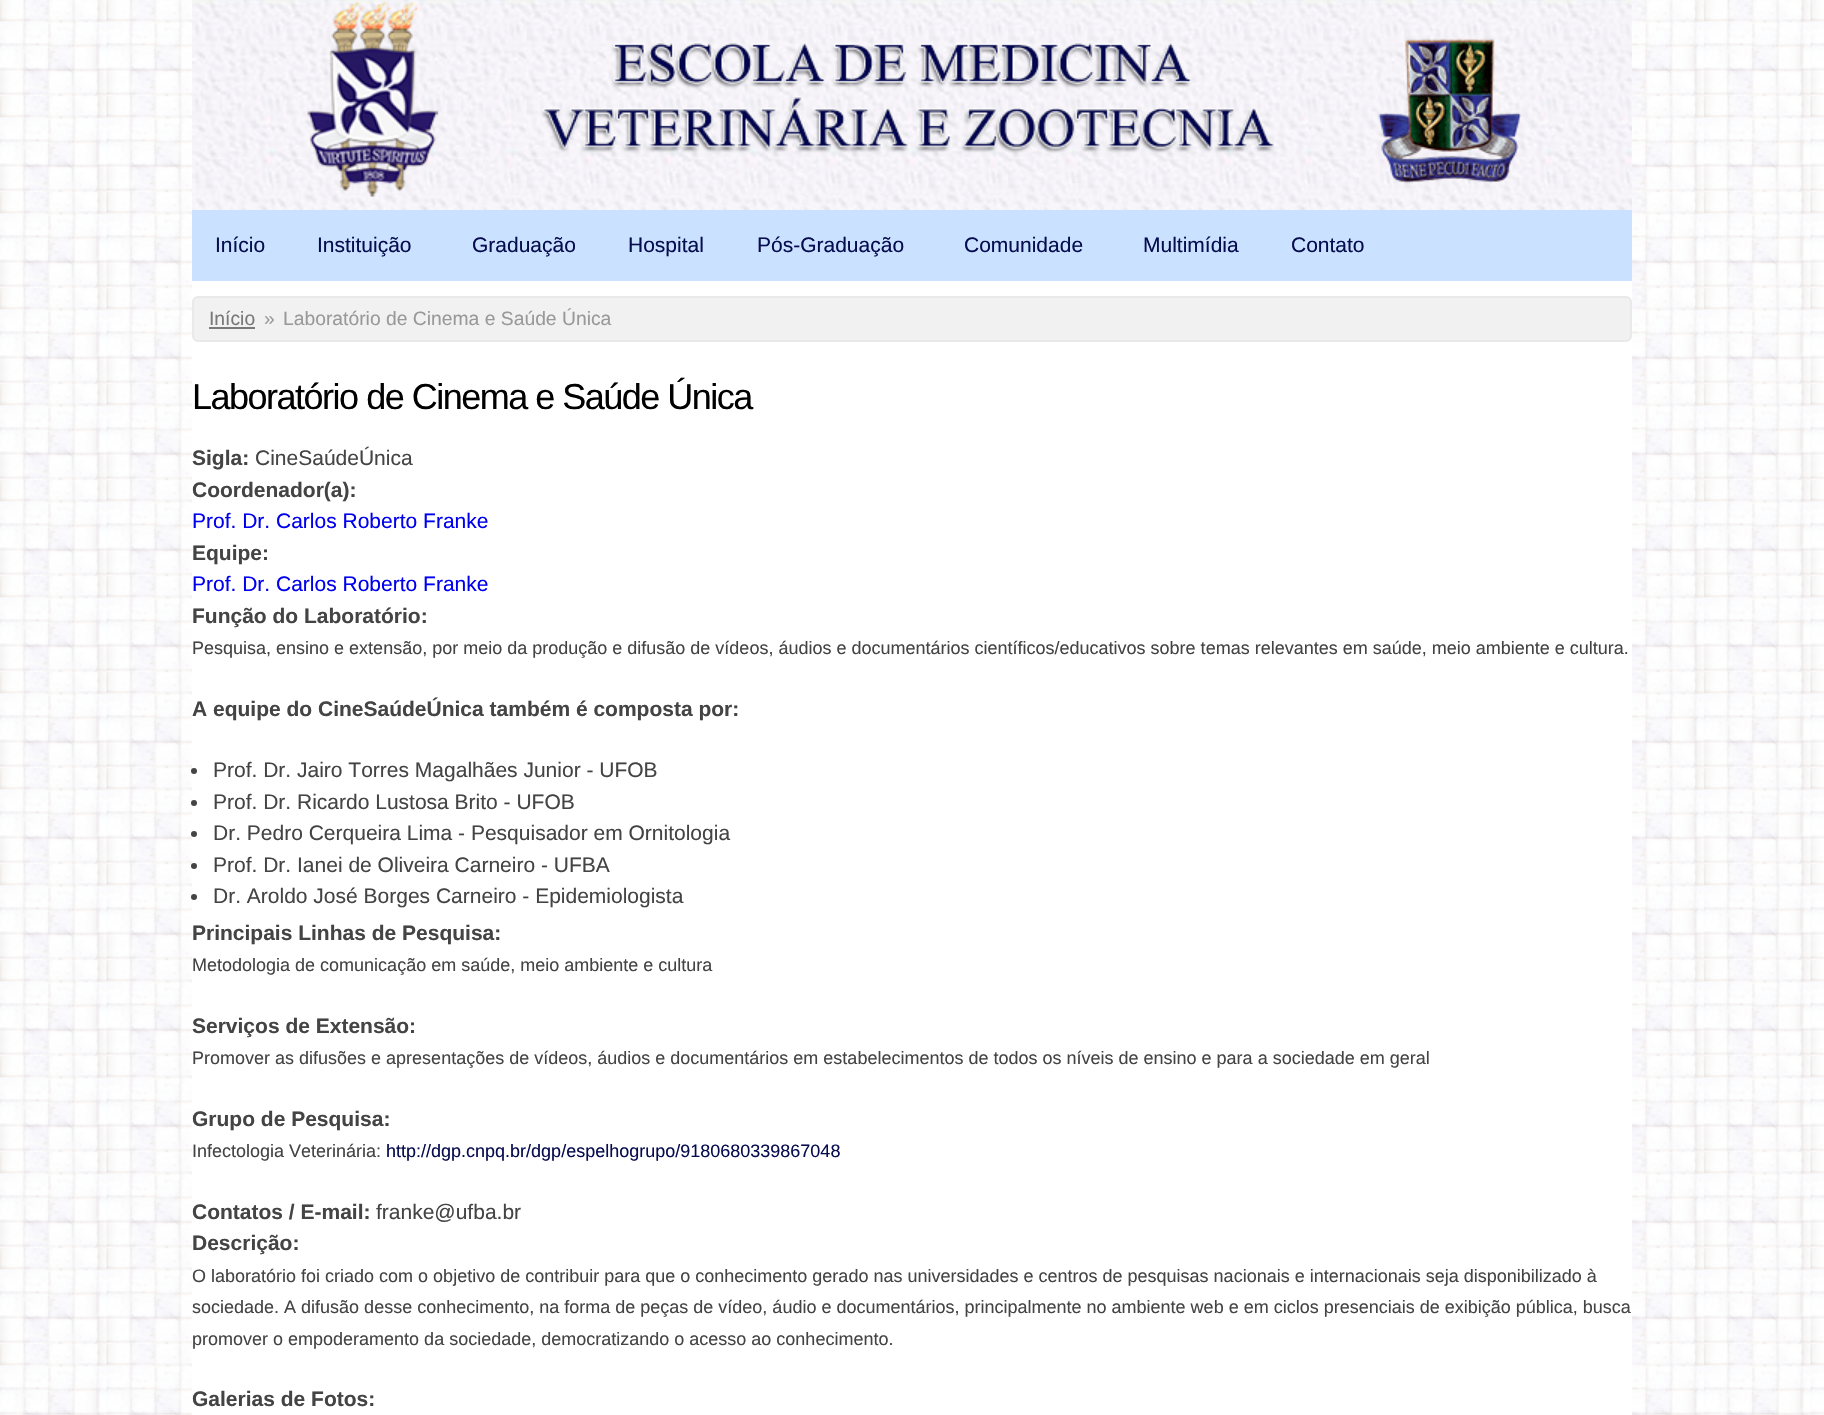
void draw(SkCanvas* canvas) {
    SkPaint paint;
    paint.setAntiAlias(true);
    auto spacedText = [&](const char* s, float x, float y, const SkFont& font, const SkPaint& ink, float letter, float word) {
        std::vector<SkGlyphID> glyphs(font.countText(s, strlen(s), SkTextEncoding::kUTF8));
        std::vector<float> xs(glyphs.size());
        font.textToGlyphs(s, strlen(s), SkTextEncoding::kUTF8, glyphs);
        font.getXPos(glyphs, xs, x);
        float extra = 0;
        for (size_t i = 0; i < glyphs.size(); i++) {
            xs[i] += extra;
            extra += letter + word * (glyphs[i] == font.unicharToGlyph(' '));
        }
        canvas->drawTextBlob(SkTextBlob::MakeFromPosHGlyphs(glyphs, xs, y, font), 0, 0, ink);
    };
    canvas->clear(0xFFFFFFFF);
    canvas->drawImageRect(SkImages::DeferredFromEncodedData(SkData::MakeFromFileName("img1.png")), SkRect::MakeXYWH(0, 0, 1824, 1415), SkSamplingOptions());
    paint.setColor(0xFFFFFFFF);
    canvas->drawRect(SkRect::MakeXYWH(192, 0, 1440, 1415), paint);
    canvas->drawImageRect(SkImages::DeferredFromEncodedData(SkData::MakeFromFileName("img2.png")), SkRect::MakeXYWH(192, 0, 1440, 210), SkSamplingOptions());
    paint.setColor(0xFFCAE1FF);
    canvas->drawRect(SkRect::MakeXYWH(192, 210, 1440, 71), paint);
    SkFont font1(fontMgr->matchFamilyStyle("Liberation Sans", SkFontStyle::Normal()), 21);
    font1.setSubpixel(true);
    paint.setColor(0xFF070C4E);
    canvas->drawString("Início", 215, 252, font1, paint);
    canvas->drawString("Instituição", 317, 252, font1, paint);
    canvas->drawString("Graduação", 472, 252, font1, paint);
    canvas->drawString("Hospital", 628, 252, font1, paint);
    canvas->drawString("Pós-Graduação", 757, 252, font1, paint);
    canvas->drawString("Comunidade", 964, 252, font1, paint);
    canvas->drawString("Multimídia", 1143, 252, font1, paint);
    canvas->drawString("Contato", 1291, 252, font1, paint);
    paint.setColor(0xFFF1F1F1);
    canvas->drawRoundRect(SkRect::MakeXYWH(193, 297, 1438, 44), 5, 5, paint);
    paint.setStyle(SkPaint::kStroke_Style);
    paint.setStrokeWidth(2);
    paint.setColor(0xFFE9E9E9);
    canvas->drawRoundRect(SkRect::MakeXYWH(193, 297, 1438, 44), 5, 5, paint);
    SkFont font2(fontMgr->matchFamilyStyle("Liberation Sans", SkFontStyle::Normal()), 19.3f);
    font2.setSubpixel(true);
    paint.setStyle(SkPaint::kFill_Style);
    paint.setColor(0xFF797979);
    canvas->drawString("Início", 209, 325, font2, paint);
    canvas->drawRect(SkRect::MakeXYWH(209, 327, 46, 2), paint);
    paint.setColor(0xFF999999);
    canvas->drawString("»", 264, 325, font2, paint);
    canvas->drawString("Laboratório de Cinema e Saúde Única", 283, 325, font2, paint);
    SkFont font3(fontMgr->matchFamilyStyle("Liberation Sans", SkFontStyle::Normal()), 36);
    font3.setSubpixel(true);
    paint.setColor(0xFF000000);
    spacedText("Laboratório de Cinema e Saúde Única", 192, 409, font3, paint, -1.5f, 0);
    SkFont font4(fontMgr->matchFamilyStyle("Liberation Sans", SkFontStyle::Bold()), 21);
    font4.setSubpixel(true);
    paint.setColor(0xFF444444);
    canvas->drawString("Sigla:", 192, 465, font4, paint);
    canvas->drawString("CineSaúdeÚnica", 255, 465, font1, paint);
    canvas->drawString("Coordenador(a):", 192, 497, font4, paint);
    paint.setColor(0xFF0000EE);
    canvas->drawString("Prof. Dr. Carlos Roberto Franke", 192, 528, font1, paint);
    paint.setColor(0xFF444444);
    canvas->drawString("Equipe:", 192, 560, font4, paint);
    paint.setColor(0xFF0000EE);
    canvas->drawString("Prof. Dr. Carlos Roberto Franke", 192, 591, font1, paint);
    paint.setColor(0xFF444444);
    canvas->drawString("Função do Laboratório:", 192, 623, font4, paint);
    SkFont font5(fontMgr->matchFamilyStyle("Liberation Sans", SkFontStyle::Normal()), 18);
    font5.setSubpixel(true);
    canvas->drawString("Pesquisa, ensino e extensão, por meio da produção e difusão de vídeos, áudios e documentários científicos/educativos sobre temas relevantes em saúde, meio ambiente e cultura.", 192, 654, font5, paint);
    canvas->drawString("A equipe do CineSaúdeÚnica também é composta por:", 192, 716, font4, paint);
    canvas->drawCircle(194, 771, 3, paint);
    canvas->drawString("Prof. Dr. Jairo Torres Magalhães Junior - UFOB", 213, 777, font1, paint);
    canvas->drawCircle(194, 803, 3, paint);
    canvas->drawString("Prof. Dr. Ricardo Lustosa Brito - UFOB", 213, 809, font1, paint);
    canvas->drawCircle(194, 834, 3, paint);
    canvas->drawString("Dr. Pedro Cerqueira Lima - Pesquisador em Ornitologia", 213, 840, font1, paint);
    canvas->drawCircle(194, 866, 3, paint);
    canvas->drawString("Prof. Dr. Ianei de Oliveira Carneiro - UFBA", 213, 872, font1, paint);
    canvas->drawCircle(194, 897, 3, paint);
    canvas->drawString("Dr. Aroldo José Borges Carneiro - Epidemiologista", 213, 903, font1, paint);
    canvas->drawString("Principais Linhas de Pesquisa:", 192, 940, font4, paint);
    canvas->drawString("Metodologia de comunicação em saúde, meio ambiente e cultura", 192, 971, font5, paint);
    canvas->drawString("Serviços de Extensão:", 192, 1033, font4, paint);
    canvas->drawString("Promover as difusões e apresentações de vídeos, áudios e documentários em estabelecimentos de todos os níveis de ensino e para a sociedade em geral", 192, 1064, font5, paint);
    canvas->drawString("Grupo de Pesquisa:", 192, 1126, font4, paint);
    canvas->drawString("Infectologia Veterinária:", 192, 1157, font5, paint);
    paint.setColor(0xFF070C4E);
    canvas->drawString("http://dgp.cnpq.br/dgp/espelhogrupo/9180680339867048", 386, 1157, font5, paint);
    paint.setColor(0xFF444444);
    canvas->drawString("Contatos / E-mail:", 192, 1219, font4, paint);
    canvas->drawString("franke@ufba.br", 376, 1219, font1, paint);
    canvas->drawString("Descrição:", 192, 1250, font4, paint);
    canvas->drawString("O laboratório foi criado com o objetivo de contribuir para que o conhecimento gerado nas universidades e centros de pesquisas nacionais e internacionais seja disponibilizado à", 192, 1282, font5, paint);
    canvas->drawString("sociedade. A difusão desse conhecimento, na forma de peças de vídeo, áudio e documentários, principalmente no ambiente web e em ciclos presenciais de exibição pública, busca", 192, 1313, font5, paint);
    canvas->drawString("promover o empoderamento da sociedade, democratizando o acesso ao conhecimento.", 192, 1345, font5, paint);
    canvas->drawString("Galerias de Fotos:", 192, 1406, font4, paint);
}
